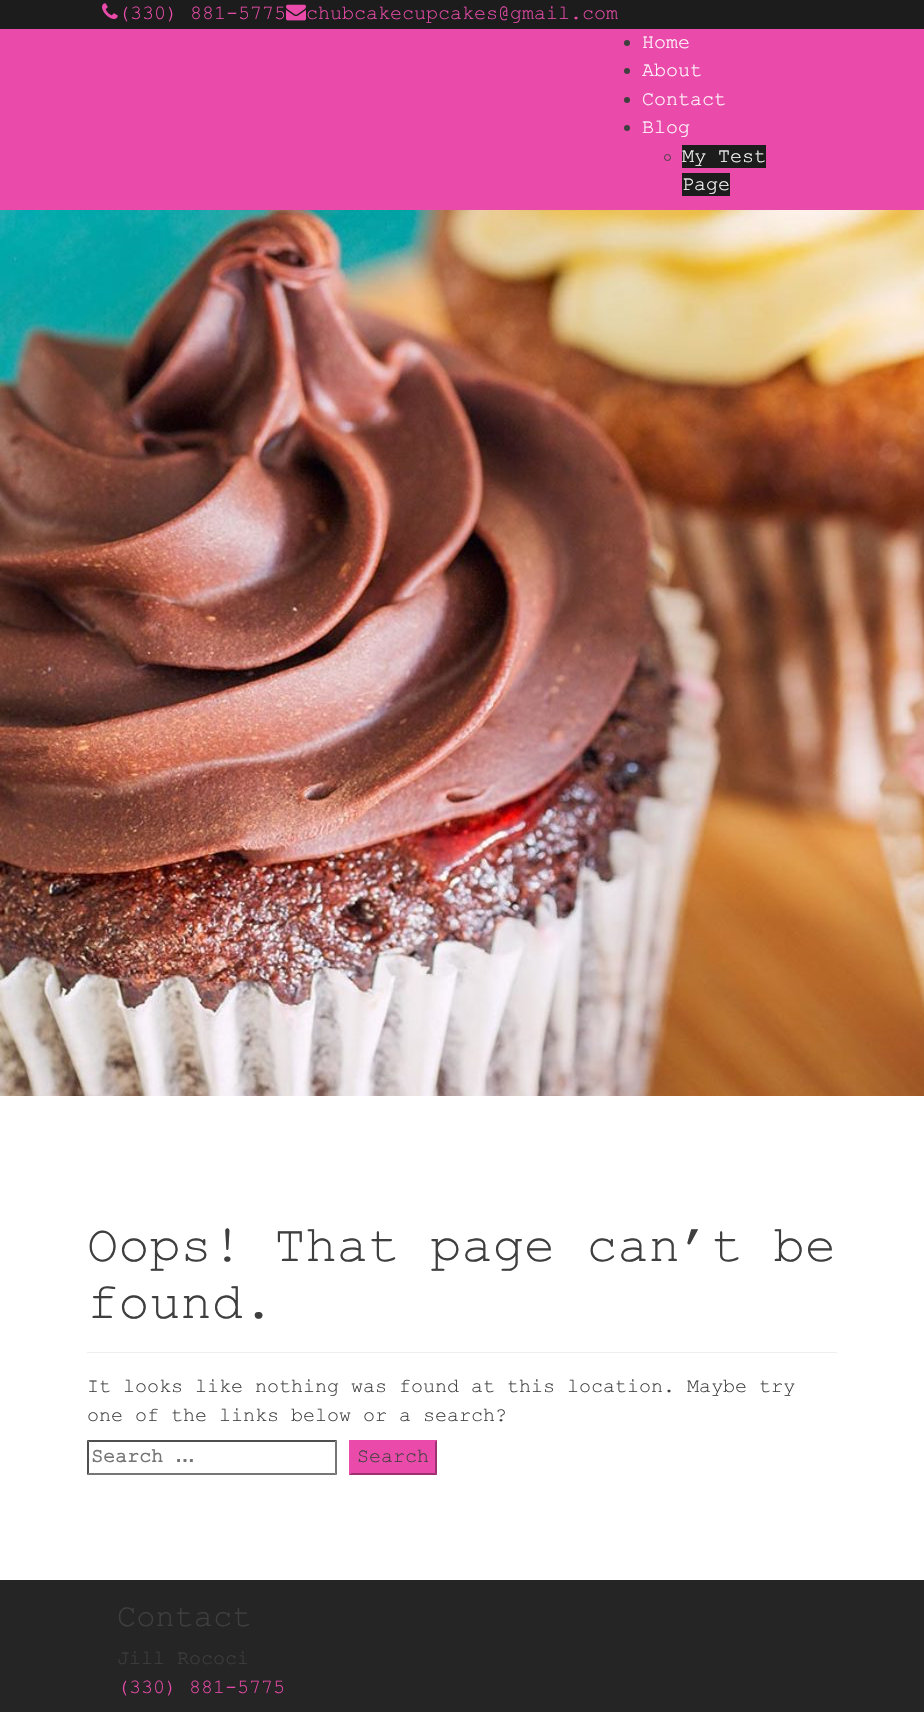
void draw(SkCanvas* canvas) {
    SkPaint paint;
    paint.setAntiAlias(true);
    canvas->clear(0xFFFFFFFF);
    paint.setColor(0xFF1C1C1C);
    canvas->drawRect(SkRect::MakeXYWH(0, 0, 924, 29), paint);
    canvas->drawImageRect(SkImages::DeferredFromEncodedData(SkData::MakeFromFileName("img1.png")), SkRect::MakeXYWH(102, 3, 16, 16), SkSamplingOptions());
    SkFont font1(fontMgr->matchFamilyStyle("Courier New", SkFontStyle::Normal()), 20);
    font1.setSubpixel(true);
    paint.setColor(0xFFEA4BAA);
    canvas->drawString("(330) 881-5775", 118, 19, font1, paint);
    canvas->drawImageRect(SkImages::DeferredFromEncodedData(SkData::MakeFromFileName("img2.png")), SkRect::MakeXYWH(286, 4, 20, 17), SkSamplingOptions());
    canvas->drawString("chubcakecupcakes@gmail.com", 306, 19, font1, paint);
    canvas->drawRect(SkRect::MakeXYWH(0, 29, 924, 181), paint);
    paint.setColor(0xFF3F3F3F);
    canvas->drawCircle(627, 43, 3, paint);
    paint.setColor(0xFFFFFFFF);
    canvas->drawString("Home", 642, 48, font1, paint);
    paint.setColor(0xFF3F3F3F);
    canvas->drawCircle(627, 71, 3, paint);
    paint.setColor(0xFFFFFFFF);
    canvas->drawString("About", 642, 76, font1, paint);
    paint.setColor(0xFF3F3F3F);
    canvas->drawCircle(627, 100, 3, paint);
    paint.setColor(0xFFFFFFFF);
    canvas->drawString("Contact", 642, 105, font1, paint);
    paint.setColor(0xFF3F3F3F);
    canvas->drawCircle(627, 128, 3, paint);
    paint.setColor(0xFFFFFFFF);
    canvas->drawString("Blog", 642, 133, font1, paint);
    paint.setStyle(SkPaint::kStroke_Style);
    paint.setStrokeWidth(1);
    paint.setColor(0xFF3F3F3F);
    canvas->drawCircle(667.5f, 157.5f, 3, paint);
    paint.setStyle(SkPaint::kFill_Style);
    paint.setColor(0xFF1C1C1C);
    canvas->drawRect(SkRect::MakeXYWH(682, 145, 84, 23), paint);
    paint.setColor(0xFFFFFFFF);
    canvas->drawString("My Test", 682, 162, font1, paint);
    paint.setColor(0xFF1C1C1C);
    canvas->drawRect(SkRect::MakeXYWH(682, 173, 48, 23), paint);
    paint.setColor(0xFFFFFFFF);
    canvas->drawString("Page", 682, 190, font1, paint);
    canvas->drawImageRect(SkImages::DeferredFromEncodedData(SkData::MakeFromFileName("img3.png")), SkRect::MakeXYWH(0, 210, 924, 886), SkSamplingOptions());
    paint.setColor(0xFFEEEEEE);
    canvas->drawRect(SkRect::MakeXYWH(87, 1352, 750, 1), paint);
    SkFont font2(fontMgr->matchFamilyStyle("Courier New", SkFontStyle::Normal()), 52);
    font2.setSubpixel(true);
    paint.setColor(0xFF3F3F3F);
    canvas->drawString("Oops! That page can’t be", 87, 1261, font2, paint);
    canvas->drawString("found.", 87, 1318, font2, paint);
    canvas->drawString("It looks like nothing was found at this location. Maybe try", 87, 1392, font1, paint);
    canvas->drawString("one of the links below or a search?", 87, 1421, font1, paint);
    paint.setColor(0xFF4F4F4F);
    canvas->drawPath(SkPathBuilder().moveTo(87, 1440).lineTo(337, 1440).lineTo(335, 1442).lineTo(89, 1442).close().detach(), paint);
    paint.setColor(0xFF767676);
    canvas->drawPath(SkPathBuilder().moveTo(337, 1440).lineTo(337, 1475).lineTo(335, 1473).lineTo(335, 1442).close().detach(), paint);
    canvas->drawPath(SkPathBuilder().moveTo(337, 1475).lineTo(87, 1475).lineTo(89, 1473).lineTo(335, 1473).close().detach(), paint);
    paint.setColor(0xFF4F4F4F);
    canvas->drawPath(SkPathBuilder().moveTo(87, 1475).lineTo(87, 1440).lineTo(89, 1442).lineTo(89, 1473).close().detach(), paint);
    SkFont font3(fontMgr->matchFamilyStyle("Courier New", SkFontStyle::Bold()), 20);
    font3.setSubpixel(true);
    paint.setColor(0xFF757575);
    canvas->drawString("Search", 91, 1462, font3, paint);
    SkFont font4(fontMgr->matchFamilyStyle("Liberation Sans", SkFontStyle::Bold()), 20);
    font4.setSubpixel(true);
    canvas->drawString("…", 175, 1462, font4, paint);
    paint.setColor(0xFFEA4BAA);
    canvas->drawRect(SkRect::MakeXYWH(349, 1440, 88, 35), paint);
    paint.setColor(0xFF9C3271);
    canvas->drawPath(SkPathBuilder().moveTo(437, 1440).lineTo(437, 1475).lineTo(435, 1473).lineTo(435, 1442).close().detach(), paint);
    canvas->drawPath(SkPathBuilder().moveTo(437, 1475).lineTo(349, 1475).lineTo(351, 1473).lineTo(435, 1473).close().detach(), paint);
    paint.setColor(0xFFEA4BAA);
    canvas->drawPath(SkPathBuilder().moveTo(349, 1475).lineTo(349, 1440).lineTo(351, 1442).lineTo(351, 1473).close().detach(), paint);
    paint.setColor(0xFF3F3F3F);
    canvas->drawString("Search", 357, 1462, font1, paint);
    paint.setColor(0xFF252525);
    canvas->drawRect(SkRect::MakeXYWH(0, 1580, 924, 132), paint);
    SkFont font5(fontMgr->matchFamilyStyle("Courier New", SkFontStyle::Normal()), 32);
    font5.setSubpixel(true);
    paint.setColor(0xFF3F3F3F);
    canvas->drawString("Contact", 117, 1626, font5, paint);
    canvas->drawString("Jill Rococi", 117, 1664, font1, paint);
    paint.setColor(0xFFEA4BAA);
    canvas->drawString("(330) 881-5775", 117, 1693, font1, paint);
}
